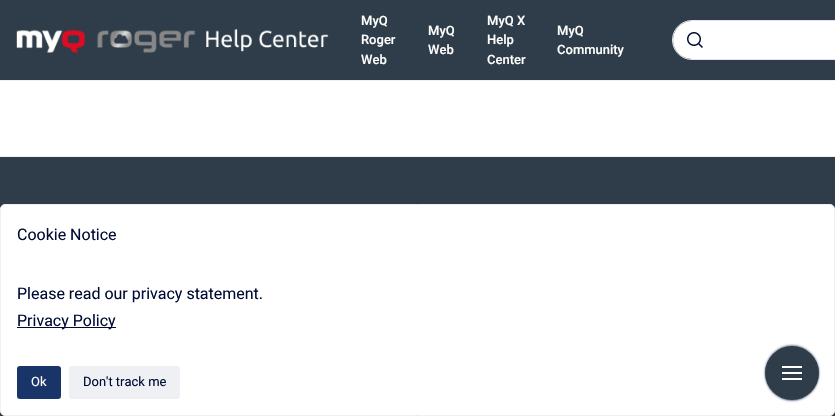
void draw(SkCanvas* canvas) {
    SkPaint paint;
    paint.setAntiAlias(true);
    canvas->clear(0xFFFFFFFF);
    paint.setColor(0xFF2E3D49);
    canvas->drawRect(SkRect::MakeXYWH(0, 0, 835, 80), paint);
    paint.setColor(0xFFEFF0F4);
    canvas->drawRect(SkRect::MakeXYWH(0, 80, 835, 1), paint);
    canvas->drawImageRect(SkImages::DeferredFromEncodedData(SkData::MakeFromFileName("img1.png")), SkRect::MakeXYWH(16, 29, 313, 24), SkSamplingOptions());
    SkFont font1(fontMgr->matchFamilyStyle("Roboto", SkFontStyle(500, SkFontStyle::kNormal_Width, SkFontStyle::kUpright_Slant)), 13);
    font1.setSubpixel(true);
    paint.setColor(0xFFFFFFFF);
    canvas->drawString("MyQ", 361, 25, font1, paint);
    canvas->drawString("Roger", 361, 44, font1, paint);
    canvas->drawString("Web", 361, 64, font1, paint);
    canvas->drawString("MyQ", 428, 35, font1, paint);
    canvas->drawString("Web", 428, 54, font1, paint);
    canvas->drawString("MyQ X", 487, 25, font1, paint);
    canvas->drawString("Help", 487, 44, font1, paint);
    canvas->drawString("Center", 487, 64, font1, paint);
    canvas->drawString("MyQ", 557, 35, font1, paint);
    canvas->drawString("Community", 557, 54, font1, paint);
    paint.setStyle(SkPaint::kStroke_Style);
    paint.setStrokeWidth(1);
    paint.setColor(0xFFE2E5EB);
    canvas->drawRoundRect(SkRect::MakeXYWH(672.5f, 20.5f, 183, 39), 19.5f, 19.5f, paint);
    paint.setStyle(SkPaint::kFill_Style);
    paint.setColor(0xFFFFFFFF);
    canvas->drawRoundRect(SkRect::MakeXYWH(673, 21, 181, 38), 19, 19, paint);
    canvas->drawImageRect(SkImages::DeferredFromEncodedData(SkData::MakeFromFileName("img2.png")), SkRect::MakeXYWH(687, 32, 16, 16), SkSamplingOptions());
    paint.setColor(0xFF2E3D49);
    canvas->drawRect(SkRect::MakeXYWH(0, 157, 835, 259), paint);
    paint.setColor(0xFFEFF0F4);
    canvas->drawRect(SkRect::MakeXYWH(0, 156, 835, 1), paint);
    paint.setColor(0xFFFFFFFF);
    canvas->drawRoundRect(SkRect::MakeXYWH(0.5f, 204.5f, 834, 211), 4.5f, 4.5f, paint);
    paint.setStyle(SkPaint::kStroke_Style);
    paint.setColor(0xFFEFF0F4);
    canvas->drawRoundRect(SkRect::MakeXYWH(0.5f, 204.5f, 834, 211), 4.5f, 4.5f, paint);
    SkFont font2(fontMgr->matchFamilyStyle("Roboto", SkFontStyle::Normal()), 16);
    font2.setSubpixel(true);
    paint.setStyle(SkPaint::kFill_Style);
    paint.setColor(0xFF000C34);
    canvas->drawString("Cookie Notice", 17, 240, font2, paint);
    canvas->drawString("Please read our privacy statement.", 17, 299, font2, paint);
    canvas->drawRect(SkRect::MakeXYWH(17, 327, 99, 1), paint);
    canvas->drawString("Privacy Policy", 17, 326, font2, paint);
    paint.setColor(0xFF193468);
    canvas->drawRoundRect(SkRect::MakeXYWH(17, 366, 44, 33), 3, 3, paint);
    SkFont font3(fontMgr->matchFamilyStyle("Roboto", SkFontStyle::Normal()), 13);
    font3.setSubpixel(true);
    paint.setColor(0xFFFFFFFF);
    canvas->drawString("Ok", 31, 386, font3, paint);
    paint.setColor(0xFFEFF0F4);
    canvas->drawRoundRect(SkRect::MakeXYWH(69, 366, 111, 33), 3, 3, paint);
    paint.setColor(0xFF000C34);
    canvas->drawString("Don't track me", 83, 386, font3, paint);
    paint.setColor(0xFF7A869A);
    paint.setMaskFilter(SkMaskFilter::MakeBlur(kNormal_SkBlurStyle, 1));
    canvas->drawRoundRect(SkRect::MakeXYWH(765, 345, 54, 54), 27, 27, paint);
    paint.setMaskFilter(nullptr);
    paint.setMaskFilter(SkMaskFilter::MakeBlur(kNormal_SkBlurStyle, 1));
    canvas->drawRoundRect(SkRect::MakeXYWH(765, 347, 54, 54), 27, 27, paint);
    paint.setMaskFilter(nullptr);
    paint.setColor(0xFF2E3D49);
    canvas->drawCircle(792, 373, 27, paint);
    paint.setColor(0xFFFFFFFF);
    canvas->drawRect(SkRect::MakeXYWH(782, 366, 20, 2), paint);
    canvas->drawRect(SkRect::MakeXYWH(782, 372, 20, 2), paint);
    canvas->drawRect(SkRect::MakeXYWH(782, 378, 20, 2), paint);
}
